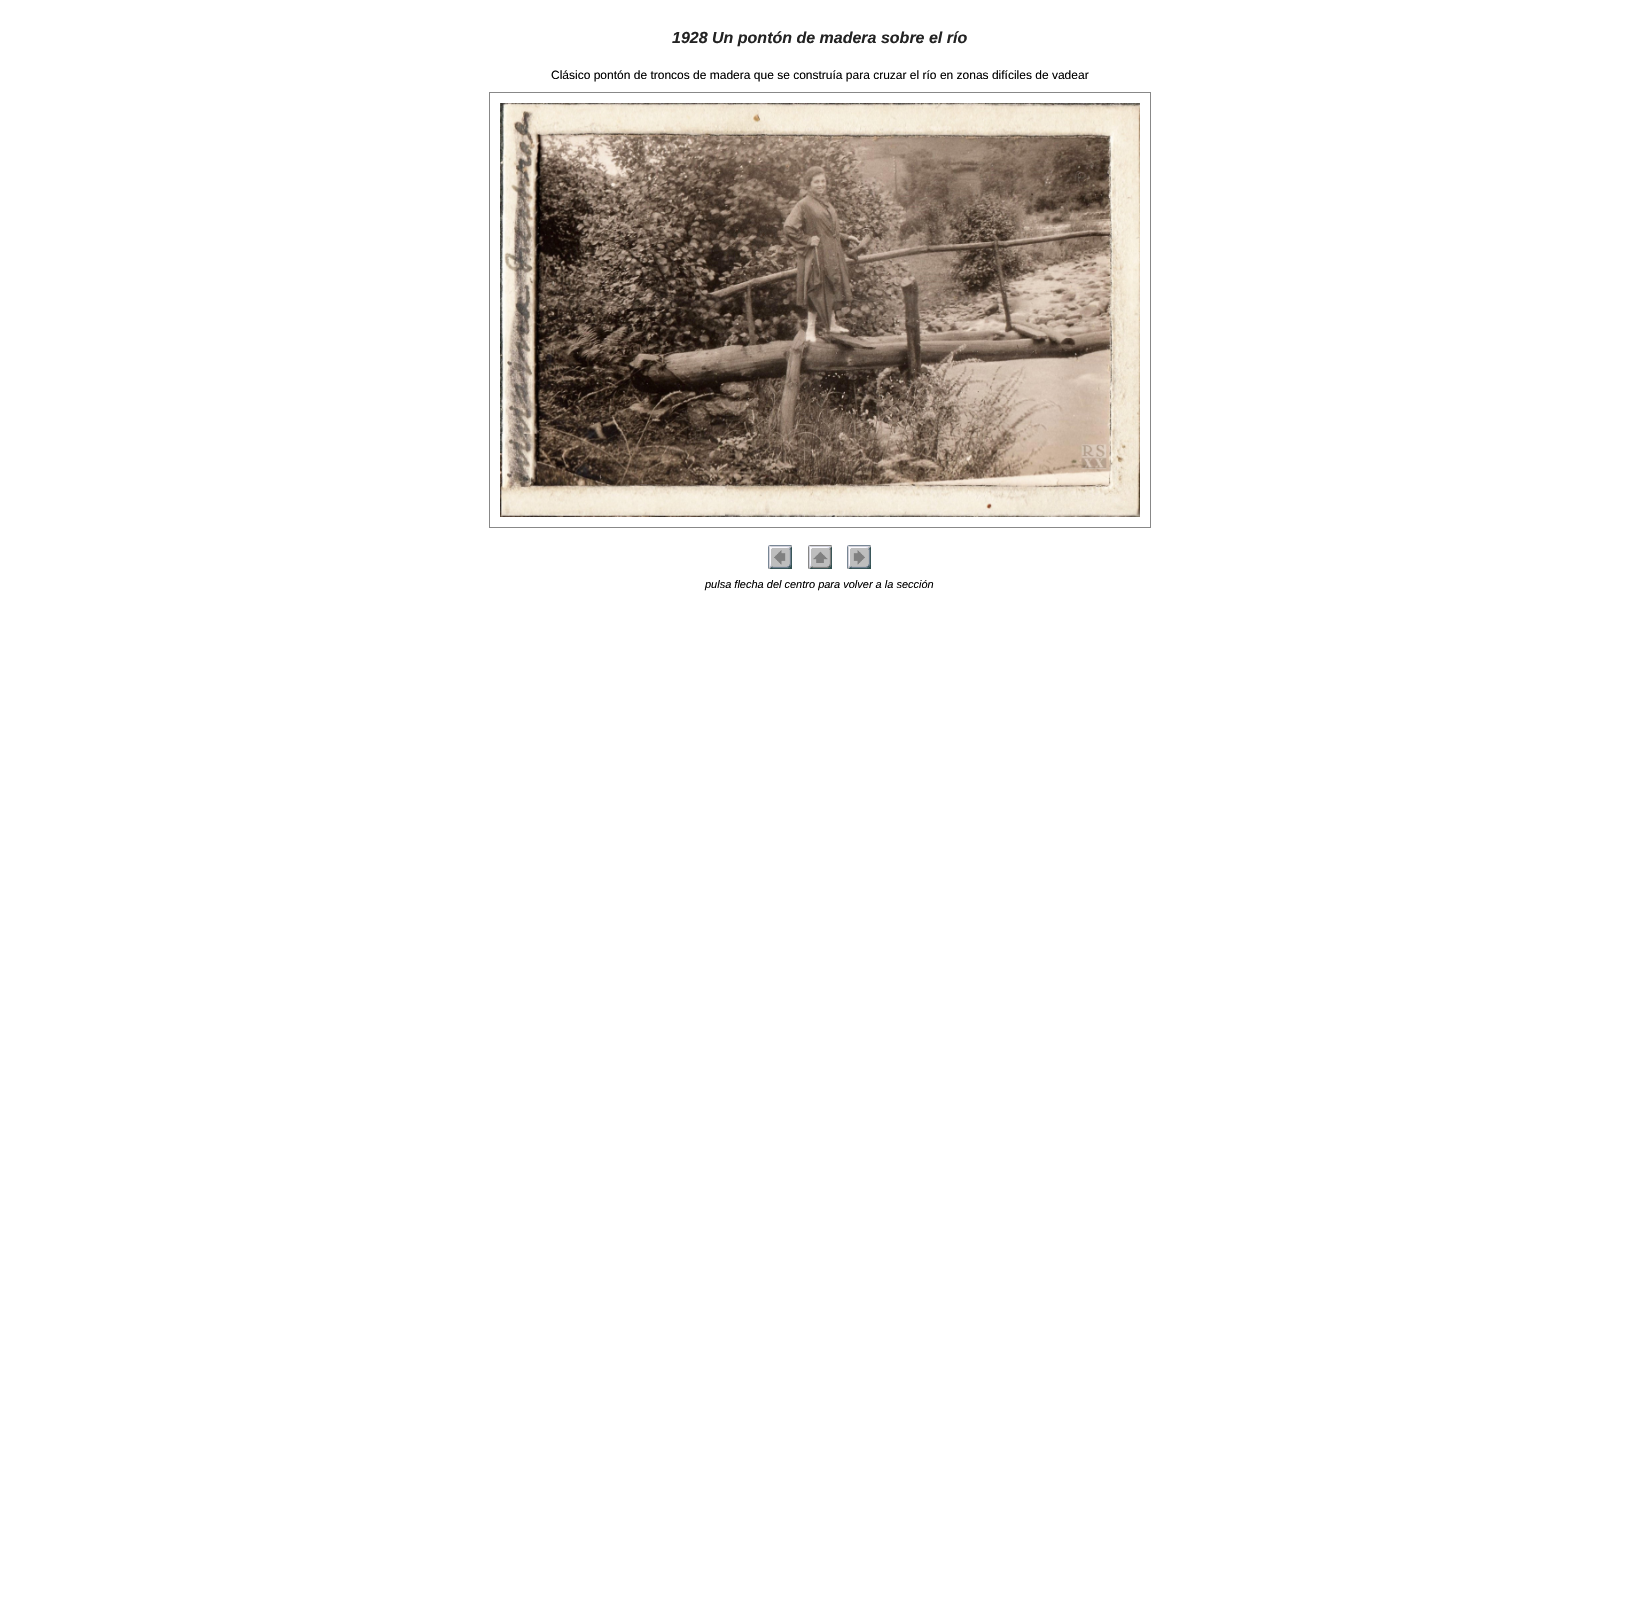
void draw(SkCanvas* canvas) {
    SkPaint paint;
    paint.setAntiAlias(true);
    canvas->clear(0xFFFFFFFF);
    SkFont font1(fontMgr->matchFamilyStyle("Liberation Sans", SkFontStyle::BoldItalic()), 16);
    font1.setSubpixel(true);
    paint.setColor(0xFF232323);
    canvas->drawString("1928 Un pontón de madera sobre el río", 672, 43, font1, paint);
    SkFont font2(fontMgr->matchFamilyStyle("Liberation Sans", SkFontStyle::Normal()), 12);
    font2.setSubpixel(true);
    paint.setColor(0xFF000000);
    canvas->drawString("Clásico pontón de troncos de madera que se construía para cruzar el río en zonas difíciles de vadear", 551, 79, font2, paint);
    paint.setStyle(SkPaint::kStroke_Style);
    paint.setStrokeWidth(1);
    paint.setColor(0xFF888888);
    canvas->drawRect(SkRect::MakeXYWH(489.5f, 92.5f, 661, 435), paint);
    canvas->drawImageRect(SkImages::DeferredFromEncodedData(SkData::MakeFromFileName("img1.png")), SkRect::MakeXYWH(500, 103, 640, 414), SkSamplingOptions());
    canvas->drawImageRect(SkImages::DeferredFromEncodedData(SkData::MakeFromFileName("img2.png")), SkRect::MakeXYWH(768, 545, 24, 24), SkSamplingOptions());
    canvas->drawImageRect(SkImages::DeferredFromEncodedData(SkData::MakeFromFileName("img3.png")), SkRect::MakeXYWH(808, 545, 24, 24), SkSamplingOptions());
    canvas->drawImageRect(SkImages::DeferredFromEncodedData(SkData::MakeFromFileName("img4.png")), SkRect::MakeXYWH(847, 545, 24, 24), SkSamplingOptions());
    SkFont font3(fontMgr->matchFamilyStyle("Liberation Sans", SkFontStyle::Italic()), 11);
    font3.setSubpixel(true);
    paint.setStyle(SkPaint::kFill_Style);
    paint.setColor(0xFF000000);
    canvas->drawString("pulsa flecha del centro para volver a la sección", 705, 588, font3, paint);
}
